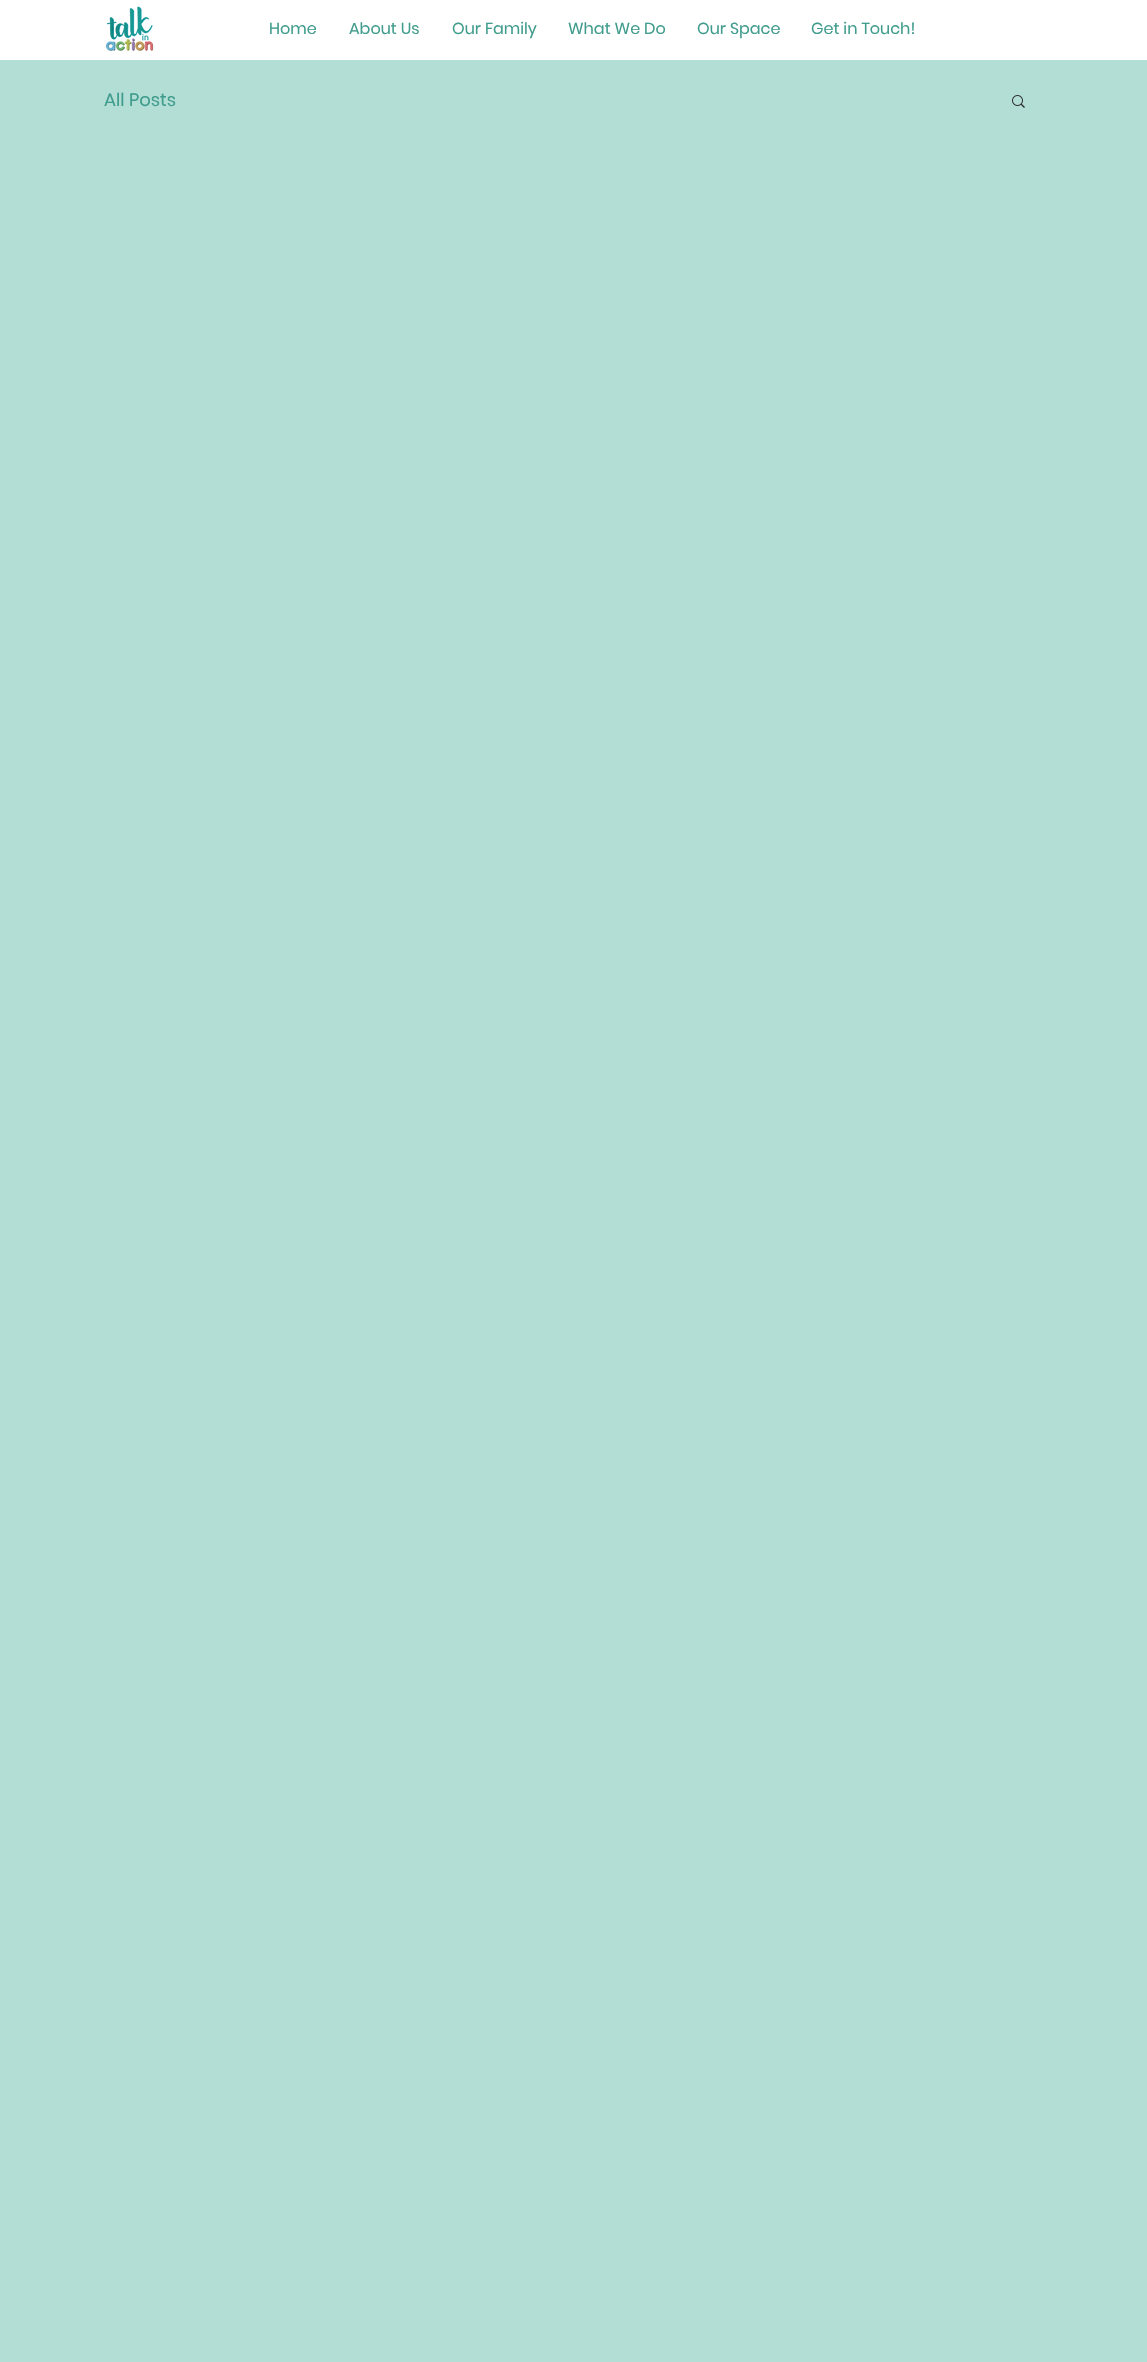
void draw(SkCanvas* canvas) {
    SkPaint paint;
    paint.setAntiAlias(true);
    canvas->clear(0xFFB2DED6);
    paint.setColor(0xFFFFFFFF);
    canvas->drawRect(SkRect::MakeXYWH(0, 0, 1147, 60), paint);
    canvas->drawImageRect(SkImages::DeferredFromEncodedData(SkData::MakeFromFileName("img1.png")), SkRect::MakeXYWH(106, 6, 48, 45), SkSamplingOptions());
    SkFont font1(fontMgr->matchFamilyStyle("Poppins", SkFontStyle::Normal()), 16);
    font1.setSubpixel(true);
    paint.setColor(0xFF409C8C);
    canvas->drawString("Home", 269, 34, font1, paint);
    canvas->drawString("About Us", 349, 34, font1, paint);
    canvas->drawString("Our Family", 452, 34, font1, paint);
    canvas->drawString("What We Do", 568, 34, font1, paint);
    canvas->drawString("Our Space", 697, 34, font1, paint);
    canvas->drawString("Get in Touch!", 811, 34, font1, paint);
    SkFont font2(fontMgr->matchFamilyStyle("Poppins", SkFontStyle::Normal()), 18);
    font2.setSubpixel(true);
    canvas->drawString("All Posts", 104, 106, font2, paint);
    canvas->drawImageRect(SkImages::DeferredFromEncodedData(SkData::MakeFromFileName("img2.png")), SkRect::MakeXYWH(1012, 95, 13, 13), SkSamplingOptions());
}
